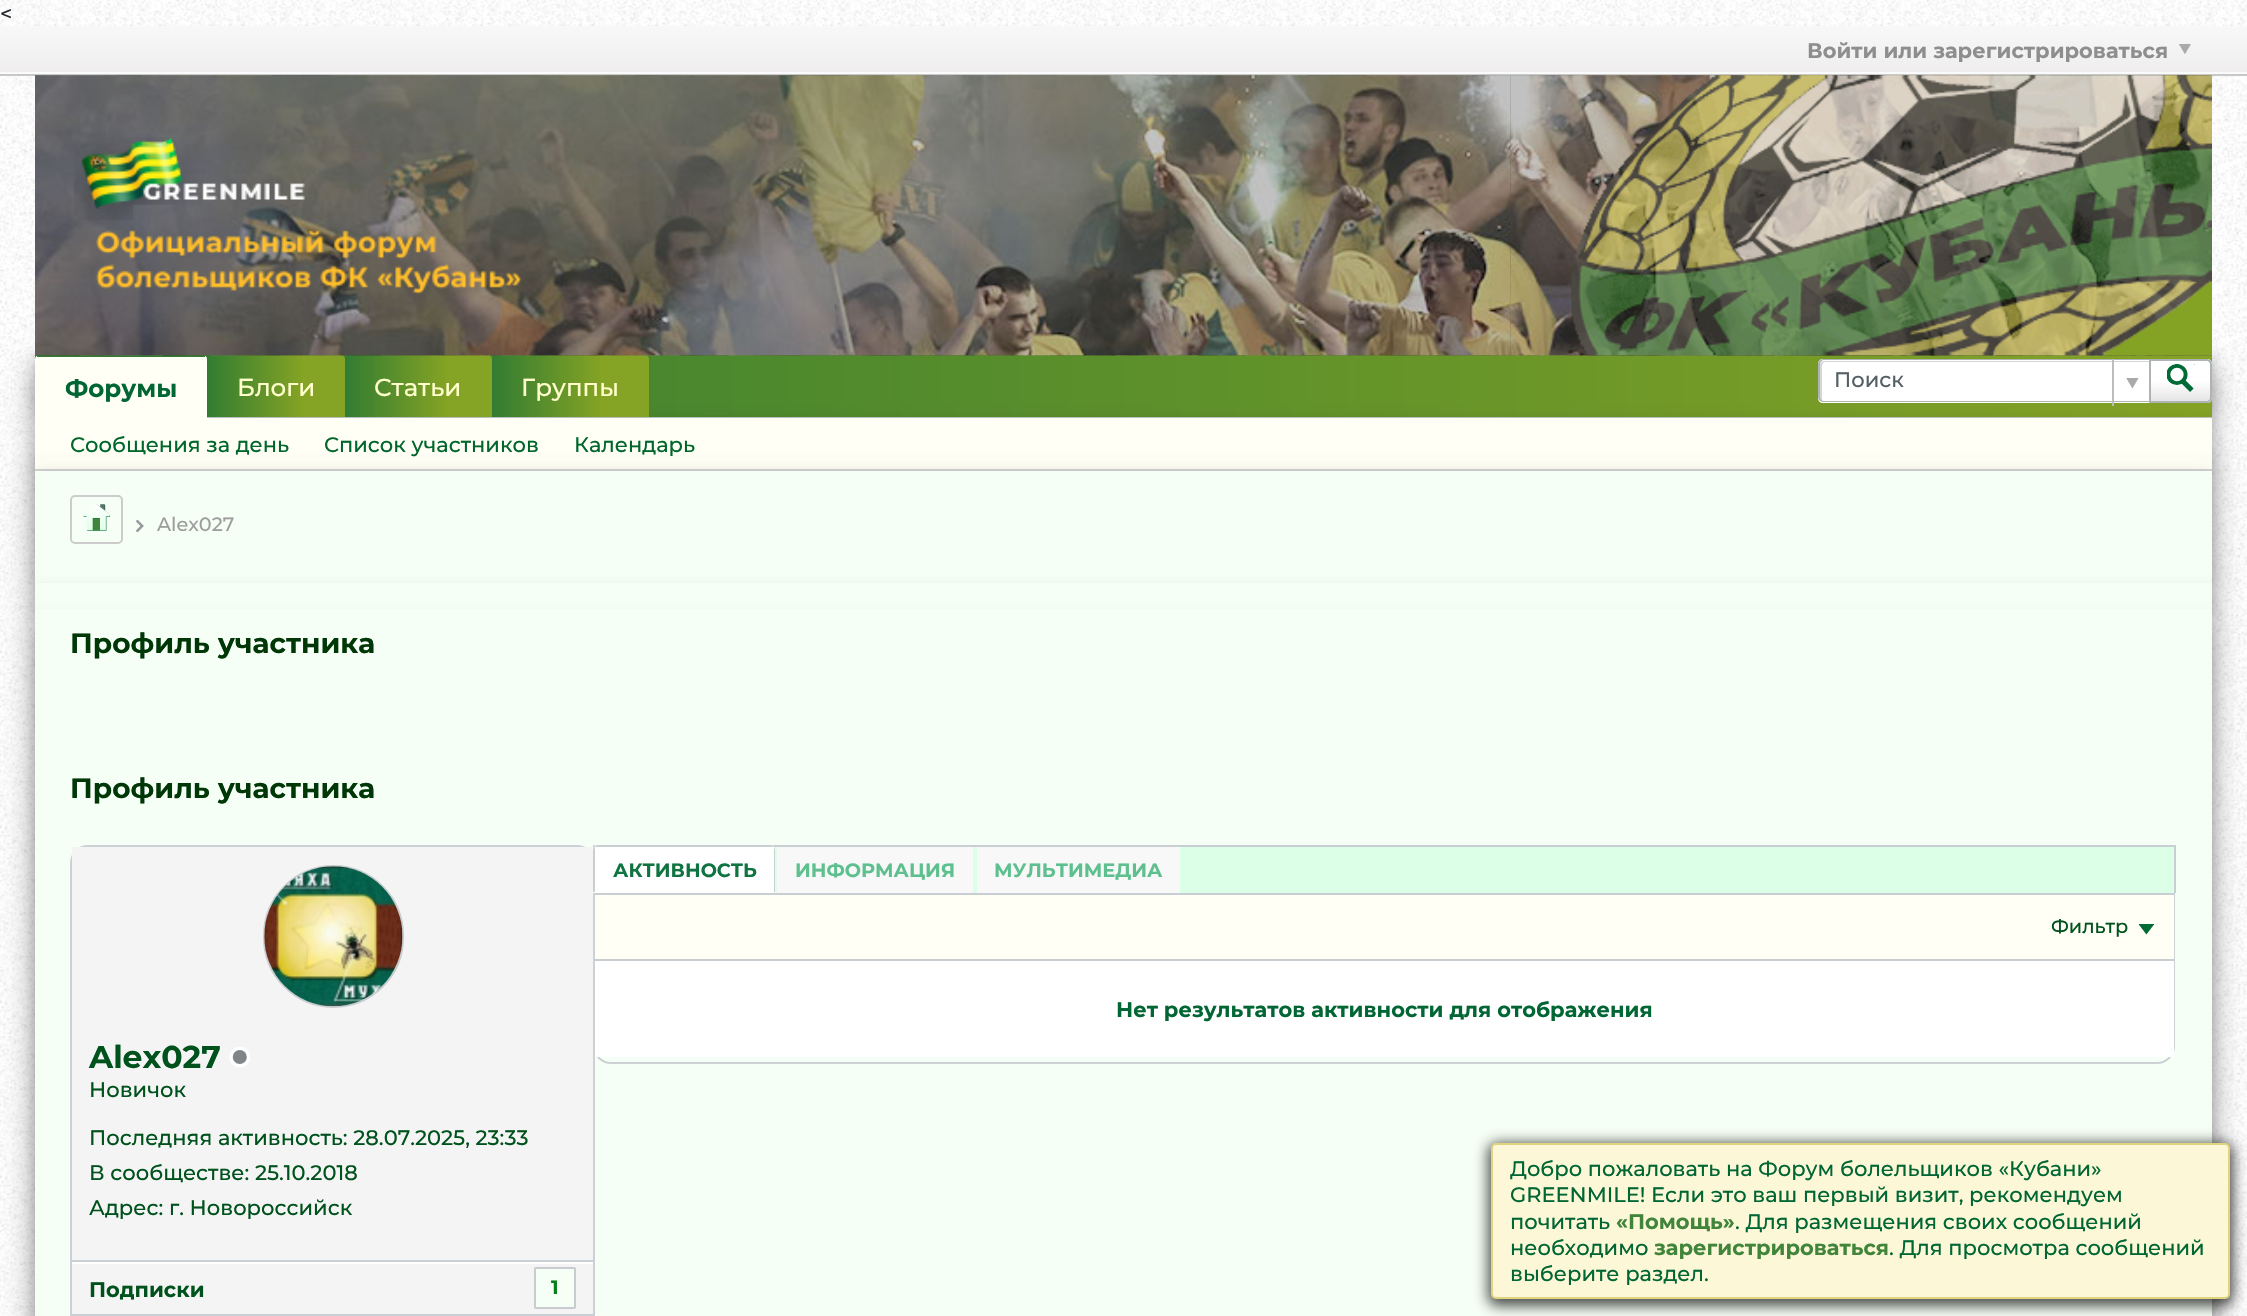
void draw(SkCanvas* canvas) {
    SkPaint paint;
    paint.setAntiAlias(true);
    canvas->clear(0xFFFFFFFF);
    canvas->drawImageRect(SkImages::DeferredFromEncodedData(SkData::MakeFromFileName("img1.png")), SkRect::MakeXYWH(0, 0, 2247, 1316), SkSamplingOptions());
    SkFont font1(fontMgr->matchFamilyStyle("Montserrat", SkFontStyle(500, SkFontStyle::kNormal_Width, SkFontStyle::kUpright_Slant)), 21);
    font1.setSubpixel(true);
    paint.setColor(0xFF252C2F);
    canvas->drawString("<", 0, 21, font1, paint);
    {
        const SkColor colors[] = {0xFFF8F8F8, 0xFFEFEDEE};
        const float stops[] = {0, 1};
        const SkPoint ends[] = {{1124, 26}, {1124, 75}};
        paint.setShader(SkGradientShader::MakeLinear(ends, colors, stops, 2, SkTileMode::kClamp));
        paint.setAlpha(255);
    }
    canvas->drawRect(SkRect::MakeXYWH(0, 26, 2247, 46), paint);
    SkFont font2(fontMgr->matchFamilyStyle("Montserrat", SkFontStyle::Bold()), 21);
    font2.setSubpixel(true);
    paint.setShader(nullptr);
    paint.setColor(0xFF8E8E8E);
    canvas->drawString("Войти или зарегистрироваться", 1807, 58, font2, paint);
    canvas->drawImageRect(SkImages::DeferredFromEncodedData(SkData::MakeFromFileName("img2.png")), SkRect::MakeXYWH(2179, 44, 12, 10), SkSamplingOptions());
    paint.setColor(0xFFFAFAFA);
    canvas->drawRect(SkRect::MakeXYWH(0, 72, 2247, 2), paint);
    paint.setColor(0xFFC7C8C9);
    canvas->drawRect(SkRect::MakeXYWH(0, 74, 2247, 2), paint);
    paint.setColor(0x5C000000);
    paint.setMaskFilter(SkMaskFilter::MakeBlur(kNormal_SkBlurStyle, 14));
    canvas->drawRect(SkRect::MakeXYWH(35, 369, 2177, 63), paint);
    paint.setMaskFilter(nullptr);
    paint.setColor(0x2E000000);
    paint.setMaskFilter(SkMaskFilter::MakeBlur(kNormal_SkBlurStyle, 7));
    canvas->drawRect(SkRect::MakeXYWH(35, 355, 2177, 63), paint);
    paint.setMaskFilter(nullptr);
    {
        const SkColor colors[] = {0xFF327C32, 0xFF85A324};
        const float stops[] = {0, 1};
        const SkPoint ends[] = {{35, 386}, {2212, 386}};
        paint.setShader(SkGradientShader::MakeLinear(ends, colors, stops, 2, SkTileMode::kClamp));
        paint.setAlpha(255);
    }
    canvas->drawRect(SkRect::MakeXYWH(35, 355, 2177, 62), paint);
    paint.setShader(nullptr);
    paint.setColor(0xFFC4C7C8);
    canvas->drawRect(SkRect::MakeXYWH(207, 417, 2005, 1), paint);
    paint.setColor(0x5C000000);
    paint.setMaskFilter(SkMaskFilter::MakeBlur(kNormal_SkBlurStyle, 14));
    canvas->drawRect(SkRect::MakeXYWH(35, 443, 2177, 52), paint);
    paint.setMaskFilter(nullptr);
    paint.setColor(0x2E000000);
    paint.setMaskFilter(SkMaskFilter::MakeBlur(kNormal_SkBlurStyle, 7));
    canvas->drawRect(SkRect::MakeXYWH(35, 424, 2177, 52), paint);
    paint.setMaskFilter(nullptr);
    paint.setColor(0xFFFFFFF5);
    canvas->drawPath(SkPathBuilder().moveTo(39, 355).lineTo(203, 355).cubicTo(205, 355, 207, 357, 207, 359).lineTo(207, 418).lineTo(35, 418).lineTo(35, 359).cubicTo(35, 357, 37, 355, 39, 355).close().detach(), paint);
    paint.setColor(0xFF327C32);
    canvas->drawRect(SkRect::MakeXYWH(37, 355, 168, 2), paint);
    SkFont font3(fontMgr->matchFamilyStyle("Montserrat", SkFontStyle::Bold()), 24.5f);
    font3.setSubpixel(true);
    paint.setColor(0xFF006633);
    canvas->drawString("Форумы", 65, 397, font3, paint);
    {
        const SkColor colors[] = {0xFF327C32, 0xFF85A324};
        const float stops[] = {0, 0.7f};
        const SkPoint ends[] = {{207, 386}, {345, 386}};
        paint.setShader(SkGradientShader::MakeLinear(ends, colors, stops, 2, SkTileMode::kClamp));
        paint.setAlpha(255);
    }
    canvas->drawPath(SkPathBuilder().moveTo(211, 355).lineTo(341, 355).cubicTo(343, 355, 345, 357, 345, 359).lineTo(345, 417).lineTo(207, 417).lineTo(207, 359).cubicTo(207, 357, 209, 355, 211, 355).close().detach(), paint);
    SkFont font4(fontMgr->matchFamilyStyle("Montserrat", SkFontStyle(500, SkFontStyle::kNormal_Width, SkFontStyle::kUpright_Slant)), 24.5f);
    font4.setSubpixel(true);
    paint.setShader(nullptr);
    paint.setColor(0xFFFFFFCC);
    canvas->drawString("Блоги", 237, 396, font4, paint);
    {
        const SkColor colors[] = {0xFF327C32, 0xFF85A324};
        const float stops[] = {0, 0.7f};
        const SkPoint ends[] = {{345, 386}, {492, 386}};
        paint.setShader(SkGradientShader::MakeLinear(ends, colors, stops, 2, SkTileMode::kClamp));
        paint.setAlpha(255);
    }
    canvas->drawPath(SkPathBuilder().moveTo(349, 355).lineTo(488, 355).cubicTo(490, 355, 492, 357, 492, 359).lineTo(492, 417).lineTo(345, 417).lineTo(345, 359).cubicTo(345, 357, 347, 355, 349, 355).close().detach(), paint);
    paint.setShader(nullptr);
    paint.setColor(0xFFFFFFCC);
    canvas->drawString("Статьи", 374, 396, font4, paint);
    {
        const SkColor colors[] = {0xFF327C32, 0xFF85A324};
        const float stops[] = {0, 0.7f};
        const SkPoint ends[] = {{492, 386}, {649, 386}};
        paint.setShader(SkGradientShader::MakeLinear(ends, colors, stops, 2, SkTileMode::kClamp));
        paint.setAlpha(255);
    }
    canvas->drawPath(SkPathBuilder().moveTo(496, 355).lineTo(645, 355).cubicTo(647, 355, 649, 357, 649, 359).lineTo(649, 417).lineTo(492, 417).lineTo(492, 359).cubicTo(492, 357, 494, 355, 496, 355).close().detach(), paint);
    paint.setShader(nullptr);
    paint.setColor(0xFFFFFFCC);
    canvas->drawString("Группы", 521, 396, font4, paint);
    canvas->drawImageRect(SkImages::DeferredFromEncodedData(SkData::MakeFromFileName("img3.png")), SkRect::MakeXYWH(35, 75, 2177, 281), SkSamplingOptions());
    canvas->drawImageRect(SkImages::DeferredFromEncodedData(SkData::MakeFromFileName("img4.png")), SkRect::MakeXYWH(74, 137, 448, 157), SkSamplingOptions());
    paint.setColor(0xFFFFFFFF);
    canvas->drawPath(SkPathBuilder().moveTo(1823, 359).lineTo(2149, 359).lineTo(2149, 403).lineTo(1823, 403).cubicTo(1820, 403, 1818, 401, 1818, 398).lineTo(1818, 364).cubicTo(1818, 361, 1820, 359, 1823, 359).close().detach(), paint);
    paint.setColor(0xFFD5D5D5);
    canvas->drawPath(SkPathBuilder().moveTo(1825, 362).lineTo(2149, 362).lineTo(2149, 361).lineTo(1824, 361).cubicTo(1822, 361, 1820, 363, 1820, 365).lineTo(1820, 397).cubicTo(1820, 399, 1821, 400, 1822, 401).lineTo(1822, 372).cubicTo(1822, 370, 1821, 362, 1825, 362).close().detach(), paint);
    paint.setColor(0xFFAEB3B6);
    canvas->drawPath(SkPathBuilder(SkPathFillType::kEvenOdd).moveTo(1824, 359).lineTo(2149, 359).lineTo(2149, 402).lineTo(1824, 402).cubicTo(1821, 402, 1818, 400, 1818, 397).lineTo(1818, 364).cubicTo(1818, 361, 1821, 359, 1824, 359).close().moveTo(1824, 360).lineTo(2149, 360).lineTo(2149, 401).lineTo(1824, 401).cubicTo(1822, 401, 1820, 399, 1820, 397).lineTo(1820, 364).cubicTo(1820, 362, 1822, 360, 1824, 360).close().detach(), paint);
    paint.setColor(0xFF556065);
    canvas->drawString("Поиск", 1834, 387, font1, paint);
    paint.setColor(0xFFBDBDBD);
    canvas->drawRect(SkRect::MakeXYWH(2112, 359, 2, 47), paint);
    canvas->drawImageRect(SkImages::DeferredFromEncodedData(SkData::MakeFromFileName("img5.png")), SkRect::MakeXYWH(2126, 378, 13, 11), SkSamplingOptions());
    paint.setColor(0xFFFFFFFF);
    canvas->drawPath(SkPathBuilder().moveTo(2149, 359).lineTo(2207, 359).cubicTo(2210, 359, 2212, 361, 2212, 364).lineTo(2212, 398).cubicTo(2212, 401, 2210, 403, 2207, 403).lineTo(2149, 403).close().detach(), paint);
    canvas->save();
    canvas->clipPath(SkPathBuilder().moveTo(2149, 359).lineTo(2207, 359).cubicTo(2210, 359, 2212, 361, 2212, 364).lineTo(2212, 398).cubicTo(2212, 401, 2210, 403, 2207, 403).lineTo(2149, 403).close().detach(), true);
    {
        const SkColor colors[] = {0x1A000000, 0x00000000, 0x00FFFFFF, 0xB3FFFFFF};
        const float stops[] = {0, 0.5f, 0.5f, 1};
        const SkPoint ends[] = {{2181, 401}, {2181, 361}};
        paint.setShader(SkGradientShader::MakeLinear(ends, colors, stops, 4, SkTileMode::kClamp));
        paint.setAlpha(255);
    }
    canvas->drawRect(SkRect::MakeXYWH(2151, 361, 61, 40), paint);
    canvas->restore();
    paint.setStyle(SkPaint::kStroke_Style);
    paint.setStrokeWidth(2);
    paint.setShader(nullptr);
    paint.setColor(0xFFAEB3B6);
    canvas->drawPath(SkPathBuilder().moveTo(2150, 360).lineTo(2207, 360).cubicTo(2209, 360, 2211, 362, 2211, 364).lineTo(2211, 398).cubicTo(2211, 400, 2209, 402, 2207, 402).lineTo(2150, 402).close().detach(), paint);
    canvas->drawImageRect(SkImages::DeferredFromEncodedData(SkData::MakeFromFileName("img6.png")), SkRect::MakeXYWH(2167, 364, 28, 28), SkSamplingOptions());
    paint.setStyle(SkPaint::kFill_Style);
    paint.setColor(0xFFFFFFF5);
    canvas->drawRect(SkRect::MakeXYWH(35, 418, 2177, 51), paint);
    paint.setColor(0xFFD3D5D6);
    canvas->drawRect(SkRect::MakeXYWH(35, 469, 2177, 2), paint);
    paint.setColor(0x5C000000);
    paint.setMaskFilter(SkMaskFilter::MakeBlur(kNormal_SkBlurStyle, 14));
    canvas->drawRect(SkRect::MakeXYWH(35, 495, 2177, 112), paint);
    paint.setMaskFilter(nullptr);
    paint.setColor(0x2E000000);
    paint.setMaskFilter(SkMaskFilter::MakeBlur(kNormal_SkBlurStyle, 7));
    canvas->drawRect(SkRect::MakeXYWH(35, 476, 2177, 112), paint);
    paint.setMaskFilter(nullptr);
    paint.setColor(0xFF00662B);
    canvas->drawString("Сообщения за день", 70, 452, font1, paint);
    canvas->drawString("Список участников", 324, 452, font1, paint);
    canvas->drawString("Календарь", 574, 452, font1, paint);
    paint.setColor(0xFFF6FFF6);
    canvas->drawRect(SkRect::MakeXYWH(35, 471, 2177, 112), paint);
    paint.setStyle(SkPaint::kStroke_Style);
    paint.setColor(0xFFCCCCCC);
    canvas->drawRoundRect(SkRect::MakeXYWH(71, 496, 51, 47), 4, 4, paint);
    canvas->drawImageRect(SkImages::DeferredFromEncodedData(SkData::MakeFromFileName("img7.png")), SkRect::MakeXYWH(82, 504, 28, 27), SkSamplingOptions());
    canvas->drawImageRect(SkImages::DeferredFromEncodedData(SkData::MakeFromFileName("img8.png")), SkRect::MakeXYWH(136, 520, 8, 12), SkSamplingOptions());
    SkFont font5(fontMgr->matchFamilyStyle("Montserrat", SkFontStyle(500, SkFontStyle::kNormal_Width, SkFontStyle::kUpright_Slant)), 19.25f);
    font5.setSubpixel(true);
    paint.setStyle(SkPaint::kFill_Style);
    paint.setColor(0xFF9E9D9D);
    canvas->drawString("Alex027", 157, 531, font5, paint);
    paint.setColor(0x5C000000);
    paint.setMaskFilter(SkMaskFilter::MakeBlur(kNormal_SkBlurStyle, 14));
    canvas->drawRect(SkRect::MakeXYWH(35, 609, 2177, 26), paint);
    paint.setMaskFilter(nullptr);
    paint.setColor(0x2E000000);
    paint.setMaskFilter(SkMaskFilter::MakeBlur(kNormal_SkBlurStyle, 7));
    canvas->drawRect(SkRect::MakeXYWH(35, 592, 2177, 26), paint);
    paint.setMaskFilter(nullptr);
    paint.setColor(0xFFF6FFF6);
    canvas->drawRect(SkRect::MakeXYWH(35, 583, 2177, 26), paint);
    paint.setColor(0x5C000000);
    paint.setMaskFilter(SkMaskFilter::MakeBlur(kNormal_SkBlurStyle, 14));
    canvas->drawRect(SkRect::MakeXYWH(35, 635, 2177, 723), paint);
    paint.setMaskFilter(nullptr);
    paint.setColor(0x2E000000);
    paint.setMaskFilter(SkMaskFilter::MakeBlur(kNormal_SkBlurStyle, 7));
    canvas->drawRect(SkRect::MakeXYWH(35, 630, 2177, 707), paint);
    paint.setMaskFilter(nullptr);
    paint.setColor(0xFFF6FFF6);
    canvas->drawRect(SkRect::MakeXYWH(35, 609, 2177, 707), paint);
    SkFont font6(fontMgr->matchFamilyStyle("Montserrat", SkFontStyle::Bold()), 28);
    font6.setSubpixel(true);
    paint.setColor(0xFF003707);
    canvas->drawString("Профиль участника", 70, 653, font6, paint);
    canvas->drawString("Профиль участника", 70, 798, font6, paint);
    paint.setStyle(SkPaint::kStroke_Style);
    paint.setColor(0xFFCCD1D5);
    canvas->drawRoundRect(SkRect::MakeXYWH(71, 846, 523, 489), 17, 17, paint);
    canvas->drawRoundRect(SkRect::MakeXYWH(594, 846, 1580, 217), 17, 17, paint);
    paint.setStyle(SkPaint::kFill_Style);
    paint.setColor(0xFFFFFFFF);
    canvas->drawRect(SkRect::MakeXYWH(595, 961, 1579, 96), paint);
    paint.setColor(0xFFDCFFE7);
    canvas->drawRect(SkRect::MakeXYWH(774, 847, 1400, 46), paint);
    paint.setColor(0xFFC9CED2);
    canvas->drawRect(SkRect::MakeXYWH(593, 845, 1582, 2), paint);
    canvas->drawRect(SkRect::MakeXYWH(2174, 845, 2, 48), paint);
    canvas->drawRect(SkRect::MakeXYWH(593, 845, 2, 5), paint);
    paint.setColor(0xFFFFFFF5);
    canvas->drawPath(SkPathBuilder().moveTo(598, 845).lineTo(770, 845).cubicTo(773, 845, 775, 847, 775, 850).lineTo(775, 893).lineTo(593, 893).lineTo(593, 850).cubicTo(593, 847, 595, 845, 598, 845).close().detach(), paint);
    paint.setColor(0xFFC9CED2);
    canvas->drawPath(SkPathBuilder(SkPathFillType::kEvenOdd).moveTo(598, 845).lineTo(770, 845).cubicTo(773, 845, 775, 848, 775, 850).lineTo(775, 892).lineTo(593, 892).lineTo(593, 850).cubicTo(593, 848, 596, 845, 598, 845).close().moveTo(598, 847).lineTo(770, 847).cubicTo(772, 847, 774, 849, 774, 850).lineTo(774, 892).lineTo(595, 892).lineTo(595, 850).cubicTo(595, 849, 597, 847, 598, 847).close().detach(), paint);
    paint.setColor(0xFFFFFFFF);
    canvas->drawRect(SkRect::MakeXYWH(595, 847, 179, 46), paint);
    SkFont font7(fontMgr->matchFamilyStyle("Montserrat", SkFontStyle::Bold()), 19.25f);
    font7.setSubpixel(true);
    paint.setColor(0xFF0F7441);
    canvas->drawString("АКТИВНОСТЬ", 613, 877, font7, paint);
    paint.setColor(0xFFF8F8F8);
    canvas->drawRect(SkRect::MakeXYWH(777, 847, 196, 46), paint);
    paint.setColor(0xFF5EC08E);
    canvas->drawString("ИНФОРМАЦИЯ", 795, 877, font7, paint);
    paint.setColor(0xFFF8F8F8);
    canvas->drawRect(SkRect::MakeXYWH(977, 847, 203, 46), paint);
    paint.setColor(0xFF5EC08E);
    canvas->drawString("МУЛЬТИМЕДИА", 994, 877, font7, paint);
    paint.setColor(0xFFFFFFF5);
    canvas->drawRect(SkRect::MakeXYWH(595, 895, 1579, 64), paint);
    paint.setColor(0xFFC9CED2);
    canvas->drawRect(SkRect::MakeXYWH(595, 893, 1579, 2), paint);
    canvas->drawRect(SkRect::MakeXYWH(595, 959, 1579, 2), paint);
    paint.setColor(0xFF00521D);
    canvas->drawString("Фильтр", 2051, 933, font5, paint);
    canvas->drawImageRect(SkImages::DeferredFromEncodedData(SkData::MakeFromFileName("img9.png")), SkRect::MakeXYWH(2139, 924, 15, 11), SkSamplingOptions());
    paint.setColor(0xFF006633);
    canvas->drawString("Нет результатов активности для отображения", 1116, 1017, font2, paint);
    paint.setColor(0xFFF4F4F4);
    canvas->drawRect(SkRect::MakeXYWH(72, 847, 521, 467), paint);
    paint.setStyle(SkPaint::kStroke_Style);
    paint.setColor(0xFFC8CCCE);
    canvas->drawRoundRect(SkRect::MakeXYWH(264, 866, 139, 141), 69.5f, 69.5f, paint);
    canvas->drawImageRect(SkImages::DeferredFromEncodedData(SkData::MakeFromFileName("img10.png")), SkRect::MakeXYWH(264, 866, 139, 141), SkSamplingOptions());
    SkFont font8(fontMgr->matchFamilyStyle("Montserrat", SkFontStyle::Bold()), 31.5f);
    font8.setSubpixel(true);
    paint.setStyle(SkPaint::kFill_Style);
    paint.setColor(0xFF00521D);
    canvas->drawString("Alex027", 89, 1068, font8, paint);
    canvas->drawImageRect(SkImages::DeferredFromEncodedData(SkData::MakeFromFileName("img11.png")), SkRect::MakeXYWH(229, 1047, 21, 21), SkSamplingOptions());
    canvas->drawString("Новичок", 89, 1097, font1, paint);
    canvas->drawString("Последняя активность: 28.07.2025, 23:33", 89, 1145, font1, paint);
    canvas->drawString("В сообществе: 25.10.2018", 89, 1180, font1, paint);
    canvas->drawString("Адрес: г. Новороссийск", 89, 1215, font1, paint);
    paint.setColor(0xFFCACFD3);
    canvas->drawRect(SkRect::MakeXYWH(72, 1260, 521, 2), paint);
    paint.setColor(0xFFFFFFFF);
    canvas->drawRect(SkRect::MakeXYWH(72, 1262, 521, 2), paint);
    paint.setColor(0xFFCACFD3);
    canvas->drawRect(SkRect::MakeXYWH(72, 1314, 521, 2), paint);
    paint.setColor(0xFF00521D);
    canvas->drawString("Подписки", 89, 1297, font2, paint);
    paint.setColor(0xFFF6FFF6);
    canvas->drawRoundRect(SkRect::MakeXYWH(535, 1268, 40, 40), 1, 1, paint);
    paint.setStyle(SkPaint::kStroke_Style);
    paint.setColor(0xFFC8CCCE);
    canvas->drawRoundRect(SkRect::MakeXYWH(535, 1268, 40, 40), 1, 1, paint);
    paint.setStyle(SkPaint::kFill_Style);
    paint.setColor(0xFF008016);
    canvas->drawString("1", 551, 1294, font7, paint);
    paint.setColor(0xB3000000);
    paint.setMaskFilter(SkMaskFilter::MakeBlur(kNormal_SkBlurStyle, 7));
    canvas->drawRoundRect(SkRect::MakeXYWH(1488, 1143, 745, 163), 9, 9, paint);
    paint.setMaskFilter(nullptr);
    paint.setColor(0xFFFCF7D7);
    canvas->drawRoundRect(SkRect::MakeXYWH(1492, 1144, 737, 154), 4, 4, paint);
    paint.setStyle(SkPaint::kStroke_Style);
    paint.setColor(0xFFE1D47E);
    canvas->drawRoundRect(SkRect::MakeXYWH(1492, 1144, 737, 154), 4, 4, paint);
    paint.setStyle(SkPaint::kFill_Style);
    paint.setColor(0xFF006633);
    canvas->drawString("Добро пожаловать на Форум болельщиков «Кубани»", 1510, 1176, font1, paint);
    canvas->drawString("GREENMILE! Если это ваш первый визит, рекомендуем", 1510, 1202, font1, paint);
    canvas->drawString("почитать", 1510, 1229, font1, paint);
    paint.setColor(0xFF41853A);
    canvas->drawString("«Помощь»", 1616, 1229, font2, paint);
    paint.setColor(0xFF006633);
    canvas->drawString(". Для размещения своих сообщений", 1735, 1229, font1, paint);
    canvas->drawString("необходимо", 1510, 1255, font1, paint);
    paint.setColor(0xFF41853A);
    canvas->drawString("зарегистрироваться", 1654, 1255, font2, paint);
    paint.setColor(0xFF006633);
    canvas->drawString(". Для просмотра сообщений", 1889, 1255, font1, paint);
    canvas->drawString("выберите раздел.", 1510, 1281, font1, paint);
}
